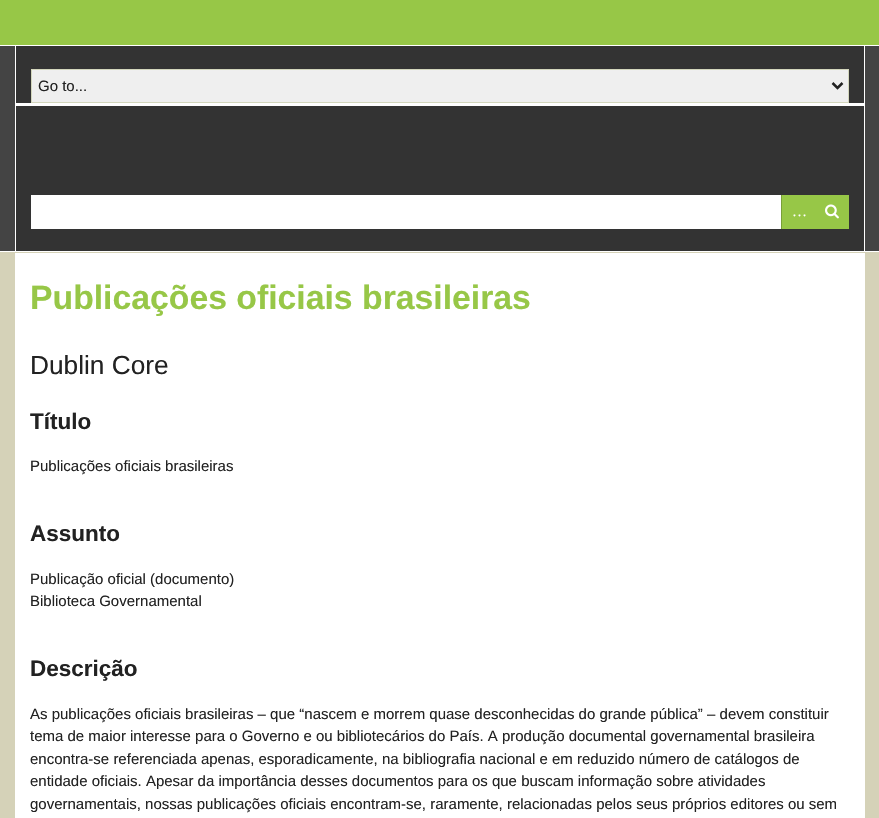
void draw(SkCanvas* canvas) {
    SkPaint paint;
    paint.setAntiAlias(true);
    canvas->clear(0xFFD5D2B8);
    paint.setColor(0xFF97C747);
    canvas->drawRect(SkRect::MakeXYWH(0, 0, 879, 45), paint);
    paint.setColor(0xFF444444);
    canvas->drawRect(SkRect::MakeXYWH(0, 46, 879, 205), paint);
    paint.setColor(0xFFFFFFFF);
    canvas->drawRect(SkRect::MakeXYWH(0, 45, 879, 1), paint);
    canvas->drawRect(SkRect::MakeXYWH(0, 251, 879, 1), paint);
    paint.setColor(0xFF333333);
    canvas->drawRect(SkRect::MakeXYWH(16, 46, 848, 205), paint);
    paint.setColor(0xFFFFFFFF);
    canvas->drawRect(SkRect::MakeXYWH(864, 46, 1, 205), paint);
    canvas->drawRect(SkRect::MakeXYWH(15, 46, 1, 205), paint);
    canvas->drawRect(SkRect::MakeXYWH(16, 103, 848, 3), paint);
    paint.setColor(0xFFEFEFEF);
    canvas->drawRect(SkRect::MakeXYWH(31.5f, 69.5f, 817, 33), paint);
    paint.setStyle(SkPaint::kStroke_Style);
    paint.setStrokeWidth(1);
    paint.setColor(0xFFD3D6BC);
    canvas->drawRect(SkRect::MakeXYWH(31.5f, 69.5f, 817, 33), paint);
    paint.setStrokeWidth(2.5f);
    paint.setColor(0xFF222222);
    canvas->drawPath(SkPathBuilder().moveTo(832.5f, 83).lineTo(837.5f, 88).lineTo(842.5f, 83).detach(), paint);
    SkFont font1(fontMgr->matchFamilyStyle("Liberation Sans", SkFontStyle::Normal()), 15);
    font1.setSubpixel(true);
    paint.setStyle(SkPaint::kFill_Style);
    canvas->drawString("Go to...", 38, 91, font1, paint);
    paint.setColor(0xFFFFFFFF);
    canvas->drawRect(SkRect::MakeXYWH(31, 195, 750, 34), paint);
    paint.setColor(0xFF97C747);
    canvas->drawRect(SkRect::MakeXYWH(782, 195, 67, 34), paint);
    paint.setColor(0xFF799F39);
    canvas->drawRect(SkRect::MakeXYWH(781, 195, 1, 34), paint);
    SkFont font2(fontMgr->matchFamilyStyle("Liberation Serif", SkFontStyle::Normal()), 15);
    font2.setSubpixel(true);
    paint.setColor(0xFFFFFFFF);
    canvas->drawString("…", 792, 216, font2, paint);
    canvas->drawImageRect(SkImages::DeferredFromEncodedData(SkData::MakeFromFileName("img1.png")), SkRect::MakeXYWH(825, 204, 14, 15), SkSamplingOptions());
    canvas->drawRect(SkRect::MakeXYWH(15, 253, 850, 565), paint);
    SkFont font3(fontMgr->matchFamilyStyle("Liberation Sans", SkFontStyle::Bold()), 33.75f);
    font3.setSubpixel(true);
    paint.setColor(0xFF97C747);
    canvas->drawString("Publicações oficiais brasileiras", 30, 309, font3, paint);
    SkFont font4(fontMgr->matchFamilyStyle("Liberation Sans", SkFontStyle::Normal()), 26.25f);
    font4.setSubpixel(true);
    paint.setColor(0xFF222222);
    canvas->drawString("Dublin Core", 30, 374, font4, paint);
    SkFont font5(fontMgr->matchFamilyStyle("Liberation Sans", SkFontStyle::Bold()), 22.5f);
    font5.setSubpixel(true);
    canvas->drawString("Título", 30, 429, font5, paint);
    canvas->drawString("Publicações oficiais brasileiras", 30, 471, font1, paint);
    canvas->drawString("Assunto", 30, 541, font5, paint);
    canvas->drawString("Publicação oficial (documento)", 30, 584, font1, paint);
    canvas->drawString("Biblioteca Governamental", 30, 606, font1, paint);
    canvas->drawString("Descrição", 30, 676, font5, paint);
    canvas->drawString("As publicações oficiais brasileiras – que “nascem e morrem quase desconhecidas do grande pública” – devem constituir", 30, 719, font1, paint);
    canvas->drawString("tema de maior interesse para o Governo e ou bibliotecários do País. A produção documental governamental brasileira", 30, 741, font1, paint);
    canvas->drawString("encontra-se referenciada apenas, esporadicamente, na bibliografia nacional e em reduzido número de catálogos de", 30, 764, font1, paint);
    canvas->drawString("entidade oficiais. Apesar da importância desses documentos para os que buscam informação sobre atividades", 30, 786, font1, paint);
    canvas->drawString("governamentais, nossas publicações oficiais encontram-se, raramente, relacionadas pelos seus próprios editores ou sem", 30, 809, font1, paint);
}
